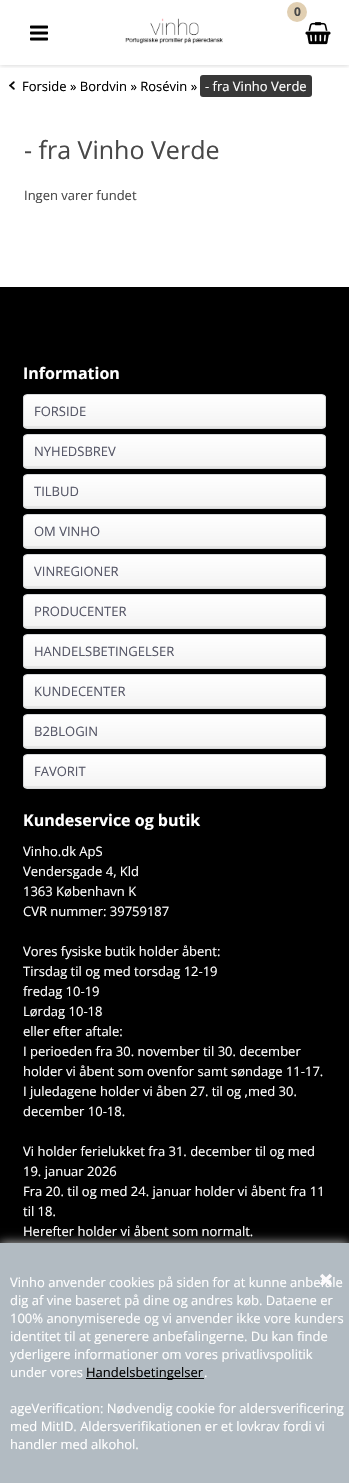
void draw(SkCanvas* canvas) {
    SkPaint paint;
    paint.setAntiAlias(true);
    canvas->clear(0xFFFFFFFF);
    canvas->save();
    canvas->clipRect(SkRect::MakeXYWH(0, 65, 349, 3));
    paint.setColor(0x33000000);
    paint.setMaskFilter(SkMaskFilter::MakeBlur(kNormal_SkBlurStyle, 2.5f));
    canvas->drawRect(SkRect::MakeXYWH(0, 0, 349, 65), paint);
    paint.setMaskFilter(nullptr);
    canvas->restore();
    paint.setColor(0xFFE1CFB2);
    canvas->drawCircle(297, 12, 10, paint);
    SkFont font1(fontMgr->matchFamilyStyle("Open Sans", SkFontStyle::Bold()), 12);
    font1.setSubpixel(true);
    paint.setColor(0xFF484848);
    canvas->drawString("0", 294, 16, font1, paint);
    canvas->drawImageRect(SkImages::DeferredFromEncodedData(SkData::MakeFromFileName("img1.png")), SkRect::MakeXYWH(305, 22, 26, 23), SkSamplingOptions());
    canvas->drawImageRect(SkImages::DeferredFromEncodedData(SkData::MakeFromFileName("img2.png")), SkRect::MakeXYWH(30, 25, 18, 16), SkSamplingOptions());
    canvas->drawImageRect(SkImages::DeferredFromEncodedData(SkData::MakeFromFileName("img3.png")), SkRect::MakeXYWH(125, 18, 98, 26), SkSamplingOptions());
    canvas->drawImageRect(SkImages::DeferredFromEncodedData(SkData::MakeFromFileName("img4.png")), SkRect::MakeXYWH(9, 81, 6, 9), SkSamplingOptions());
    SkFont font2(fontMgr->matchFamilyStyle("Open Sans", SkFontStyle::Normal()), 13);
    font2.setSubpixel(true);
    paint.setColor(0xFF000000);
    canvas->drawString("Forside » Bordvin » Rosévin »", 22, 91, font2, paint);
    paint.setColor(0xFF383838);
    canvas->drawRoundRect(SkRect::MakeXYWH(200, 75, 112, 22), 3, 3, paint);
    paint.setColor(0xFFFFFFFF);
    canvas->drawString("- fra Vinho Verde", 205, 91, font2, paint);
    SkFont font3(fontMgr->matchFamilyStyle("Open Sans", SkFontStyle::Normal()), 25);
    font3.setSubpixel(true);
    paint.setColor(0xFF484848);
    canvas->drawString("- fra Vinho Verde", 24, 159, font3, paint);
    canvas->drawString("Ingen varer fundet", 24, 200, font2, paint);
    paint.setColor(0xFF000000);
    canvas->drawRect(SkRect::MakeXYWH(0, 287, 349, 956), paint);
    SkFont font4(fontMgr->matchFamilyStyle("Open Sans", SkFontStyle::Bold()), 16);
    font4.setSubpixel(true);
    paint.setColor(0xFFFFFFFF);
    canvas->drawString("Information", 23, 379, font4, paint);
    canvas->save();
    canvas->clipPath(SkPathBuilder().moveTo(27, 394).lineTo(322, 394).cubicTo(324, 394, 326, 396, 326, 398).lineTo(326, 425).cubicTo(326, 427, 324, 429, 322, 429).lineTo(27, 429).cubicTo(25, 429, 23, 427, 23, 425).lineTo(23, 398).cubicTo(23, 396, 25, 394, 27, 394).close().detach(), true);
    {
        const SkColor colors[] = {0xFFFFFFFF, 0xFFF4F4F4, 0xFFE7E7E7};
        const float stops[] = {0, 0.94f, 0.94f};
        const SkPoint ends[] = {{175, 395}, {175, 428}};
        paint.setShader(SkGradientShader::MakeLinear(ends, colors, stops, 3, SkTileMode::kClamp));
        paint.setAlpha(255);
    }
    canvas->drawRect(SkRect::MakeXYWH(23, 395, 303, 33), paint);
    canvas->restore();
    paint.setStyle(SkPaint::kStroke_Style);
    paint.setStrokeWidth(1);
    paint.setShader(nullptr);
    paint.setColor(0xFFD8DADC);
    canvas->drawRoundRect(SkRect::MakeXYWH(23.5f, 394.5f, 302, 34), 3.5f, 3.5f, paint);
    paint.setStyle(SkPaint::kFill_Style);
    paint.setColor(0xFF575868);
    canvas->drawString("FORSIDE", 34, 416, font2, paint);
    canvas->save();
    canvas->clipPath(SkPathBuilder().moveTo(27, 434).lineTo(322, 434).cubicTo(324, 434, 326, 436, 326, 438).lineTo(326, 465).cubicTo(326, 467, 324, 469, 322, 469).lineTo(27, 469).cubicTo(25, 469, 23, 467, 23, 465).lineTo(23, 438).cubicTo(23, 436, 25, 434, 27, 434).close().detach(), true);
    {
        const SkColor colors[] = {0xFFFFFFFF, 0xFFF4F4F4, 0xFFE7E7E7};
        const float stops[] = {0, 0.94f, 0.94f};
        const SkPoint ends[] = {{175, 435}, {175, 468}};
        paint.setShader(SkGradientShader::MakeLinear(ends, colors, stops, 3, SkTileMode::kClamp));
        paint.setAlpha(255);
    }
    canvas->drawRect(SkRect::MakeXYWH(23, 435, 303, 33), paint);
    canvas->restore();
    paint.setStyle(SkPaint::kStroke_Style);
    paint.setShader(nullptr);
    paint.setColor(0xFFD8DADC);
    canvas->drawRoundRect(SkRect::MakeXYWH(23.5f, 434.5f, 302, 34), 3.5f, 3.5f, paint);
    paint.setStyle(SkPaint::kFill_Style);
    paint.setColor(0xFF575868);
    canvas->drawString("NYHEDSBREV", 34, 456, font2, paint);
    canvas->save();
    canvas->clipPath(SkPathBuilder().moveTo(27, 474).lineTo(322, 474).cubicTo(324, 474, 326, 476, 326, 478).lineTo(326, 505).cubicTo(326, 507, 324, 509, 322, 509).lineTo(27, 509).cubicTo(25, 509, 23, 507, 23, 505).lineTo(23, 478).cubicTo(23, 476, 25, 474, 27, 474).close().detach(), true);
    {
        const SkColor colors[] = {0xFFFFFFFF, 0xFFF4F4F4, 0xFFE7E7E7};
        const float stops[] = {0, 0.94f, 0.94f};
        const SkPoint ends[] = {{175, 475}, {175, 508}};
        paint.setShader(SkGradientShader::MakeLinear(ends, colors, stops, 3, SkTileMode::kClamp));
        paint.setAlpha(255);
    }
    canvas->drawRect(SkRect::MakeXYWH(23, 475, 303, 33), paint);
    canvas->restore();
    paint.setStyle(SkPaint::kStroke_Style);
    paint.setShader(nullptr);
    paint.setColor(0xFFD8DADC);
    canvas->drawRoundRect(SkRect::MakeXYWH(23.5f, 474.5f, 302, 34), 3.5f, 3.5f, paint);
    paint.setStyle(SkPaint::kFill_Style);
    paint.setColor(0xFF575868);
    canvas->drawString("TILBUD", 34, 496, font2, paint);
    canvas->save();
    canvas->clipPath(SkPathBuilder().moveTo(27, 514).lineTo(322, 514).cubicTo(324, 514, 326, 516, 326, 518).lineTo(326, 545).cubicTo(326, 547, 324, 549, 322, 549).lineTo(27, 549).cubicTo(25, 549, 23, 547, 23, 545).lineTo(23, 518).cubicTo(23, 516, 25, 514, 27, 514).close().detach(), true);
    {
        const SkColor colors[] = {0xFFFFFFFF, 0xFFF4F4F4, 0xFFE7E7E7};
        const float stops[] = {0, 0.94f, 0.94f};
        const SkPoint ends[] = {{175, 515}, {175, 548}};
        paint.setShader(SkGradientShader::MakeLinear(ends, colors, stops, 3, SkTileMode::kClamp));
        paint.setAlpha(255);
    }
    canvas->drawRect(SkRect::MakeXYWH(23, 515, 303, 33), paint);
    canvas->restore();
    paint.setStyle(SkPaint::kStroke_Style);
    paint.setShader(nullptr);
    paint.setColor(0xFFD8DADC);
    canvas->drawRoundRect(SkRect::MakeXYWH(23.5f, 514.5f, 302, 34), 3.5f, 3.5f, paint);
    paint.setStyle(SkPaint::kFill_Style);
    paint.setColor(0xFF575868);
    canvas->drawString("OM VINHO", 34, 536, font2, paint);
    canvas->save();
    canvas->clipPath(SkPathBuilder().moveTo(27, 554).lineTo(322, 554).cubicTo(324, 554, 326, 556, 326, 558).lineTo(326, 585).cubicTo(326, 587, 324, 589, 322, 589).lineTo(27, 589).cubicTo(25, 589, 23, 587, 23, 585).lineTo(23, 558).cubicTo(23, 556, 25, 554, 27, 554).close().detach(), true);
    {
        const SkColor colors[] = {0xFFFFFFFF, 0xFFF4F4F4, 0xFFE7E7E7};
        const float stops[] = {0, 0.94f, 0.94f};
        const SkPoint ends[] = {{175, 555}, {175, 588}};
        paint.setShader(SkGradientShader::MakeLinear(ends, colors, stops, 3, SkTileMode::kClamp));
        paint.setAlpha(255);
    }
    canvas->drawRect(SkRect::MakeXYWH(23, 555, 303, 33), paint);
    canvas->restore();
    paint.setStyle(SkPaint::kStroke_Style);
    paint.setShader(nullptr);
    paint.setColor(0xFFD8DADC);
    canvas->drawRoundRect(SkRect::MakeXYWH(23.5f, 554.5f, 302, 34), 3.5f, 3.5f, paint);
    paint.setStyle(SkPaint::kFill_Style);
    paint.setColor(0xFF575868);
    canvas->drawString("VINREGIONER", 34, 576, font2, paint);
    canvas->save();
    canvas->clipPath(SkPathBuilder().moveTo(27, 594).lineTo(322, 594).cubicTo(324, 594, 326, 596, 326, 598).lineTo(326, 625).cubicTo(326, 627, 324, 629, 322, 629).lineTo(27, 629).cubicTo(25, 629, 23, 627, 23, 625).lineTo(23, 598).cubicTo(23, 596, 25, 594, 27, 594).close().detach(), true);
    {
        const SkColor colors[] = {0xFFFFFFFF, 0xFFF4F4F4, 0xFFE7E7E7};
        const float stops[] = {0, 0.94f, 0.94f};
        const SkPoint ends[] = {{175, 595}, {175, 628}};
        paint.setShader(SkGradientShader::MakeLinear(ends, colors, stops, 3, SkTileMode::kClamp));
        paint.setAlpha(255);
    }
    canvas->drawRect(SkRect::MakeXYWH(23, 595, 303, 33), paint);
    canvas->restore();
    paint.setStyle(SkPaint::kStroke_Style);
    paint.setShader(nullptr);
    paint.setColor(0xFFD8DADC);
    canvas->drawRoundRect(SkRect::MakeXYWH(23.5f, 594.5f, 302, 34), 3.5f, 3.5f, paint);
    paint.setStyle(SkPaint::kFill_Style);
    paint.setColor(0xFF575868);
    canvas->drawString("PRODUCENTER", 34, 616, font2, paint);
    canvas->save();
    canvas->clipPath(SkPathBuilder().moveTo(27, 634).lineTo(322, 634).cubicTo(324, 634, 326, 636, 326, 638).lineTo(326, 665).cubicTo(326, 667, 324, 669, 322, 669).lineTo(27, 669).cubicTo(25, 669, 23, 667, 23, 665).lineTo(23, 638).cubicTo(23, 636, 25, 634, 27, 634).close().detach(), true);
    {
        const SkColor colors[] = {0xFFFFFFFF, 0xFFF4F4F4, 0xFFE7E7E7};
        const float stops[] = {0, 0.94f, 0.94f};
        const SkPoint ends[] = {{175, 635}, {175, 668}};
        paint.setShader(SkGradientShader::MakeLinear(ends, colors, stops, 3, SkTileMode::kClamp));
        paint.setAlpha(255);
    }
    canvas->drawRect(SkRect::MakeXYWH(23, 635, 303, 33), paint);
    canvas->restore();
    paint.setStyle(SkPaint::kStroke_Style);
    paint.setShader(nullptr);
    paint.setColor(0xFFD8DADC);
    canvas->drawRoundRect(SkRect::MakeXYWH(23.5f, 634.5f, 302, 34), 3.5f, 3.5f, paint);
    paint.setStyle(SkPaint::kFill_Style);
    paint.setColor(0xFF575868);
    canvas->drawString("HANDELSBETINGELSER", 34, 656, font2, paint);
    canvas->save();
    canvas->clipPath(SkPathBuilder().moveTo(27, 674).lineTo(322, 674).cubicTo(324, 674, 326, 676, 326, 678).lineTo(326, 705).cubicTo(326, 707, 324, 709, 322, 709).lineTo(27, 709).cubicTo(25, 709, 23, 707, 23, 705).lineTo(23, 678).cubicTo(23, 676, 25, 674, 27, 674).close().detach(), true);
    {
        const SkColor colors[] = {0xFFFFFFFF, 0xFFF4F4F4, 0xFFE7E7E7};
        const float stops[] = {0, 0.94f, 0.94f};
        const SkPoint ends[] = {{175, 675}, {175, 708}};
        paint.setShader(SkGradientShader::MakeLinear(ends, colors, stops, 3, SkTileMode::kClamp));
        paint.setAlpha(255);
    }
    canvas->drawRect(SkRect::MakeXYWH(23, 675, 303, 33), paint);
    canvas->restore();
    paint.setStyle(SkPaint::kStroke_Style);
    paint.setShader(nullptr);
    paint.setColor(0xFFD8DADC);
    canvas->drawRoundRect(SkRect::MakeXYWH(23.5f, 674.5f, 302, 34), 3.5f, 3.5f, paint);
    paint.setStyle(SkPaint::kFill_Style);
    paint.setColor(0xFF575868);
    canvas->drawString("KUNDECENTER", 34, 696, font2, paint);
    canvas->save();
    canvas->clipPath(SkPathBuilder().moveTo(27, 714).lineTo(322, 714).cubicTo(324, 714, 326, 716, 326, 718).lineTo(326, 745).cubicTo(326, 747, 324, 749, 322, 749).lineTo(27, 749).cubicTo(25, 749, 23, 747, 23, 745).lineTo(23, 718).cubicTo(23, 716, 25, 714, 27, 714).close().detach(), true);
    {
        const SkColor colors[] = {0xFFFFFFFF, 0xFFF4F4F4, 0xFFE7E7E7};
        const float stops[] = {0, 0.94f, 0.94f};
        const SkPoint ends[] = {{175, 715}, {175, 748}};
        paint.setShader(SkGradientShader::MakeLinear(ends, colors, stops, 3, SkTileMode::kClamp));
        paint.setAlpha(255);
    }
    canvas->drawRect(SkRect::MakeXYWH(23, 715, 303, 33), paint);
    canvas->restore();
    paint.setStyle(SkPaint::kStroke_Style);
    paint.setShader(nullptr);
    paint.setColor(0xFFD8DADC);
    canvas->drawRoundRect(SkRect::MakeXYWH(23.5f, 714.5f, 302, 34), 3.5f, 3.5f, paint);
    paint.setStyle(SkPaint::kFill_Style);
    paint.setColor(0xFF575868);
    canvas->drawString("B2BLOGIN", 34, 736, font2, paint);
    canvas->save();
    canvas->clipPath(SkPathBuilder().moveTo(27, 754).lineTo(322, 754).cubicTo(324, 754, 326, 756, 326, 758).lineTo(326, 785).cubicTo(326, 787, 324, 789, 322, 789).lineTo(27, 789).cubicTo(25, 789, 23, 787, 23, 785).lineTo(23, 758).cubicTo(23, 756, 25, 754, 27, 754).close().detach(), true);
    {
        const SkColor colors[] = {0xFFFFFFFF, 0xFFF4F4F4, 0xFFE7E7E7};
        const float stops[] = {0, 0.94f, 0.94f};
        const SkPoint ends[] = {{175, 755}, {175, 788}};
        paint.setShader(SkGradientShader::MakeLinear(ends, colors, stops, 3, SkTileMode::kClamp));
        paint.setAlpha(255);
    }
    canvas->drawRect(SkRect::MakeXYWH(23, 755, 303, 33), paint);
    canvas->restore();
    paint.setStyle(SkPaint::kStroke_Style);
    paint.setShader(nullptr);
    paint.setColor(0xFFD8DADC);
    canvas->drawRoundRect(SkRect::MakeXYWH(23.5f, 754.5f, 302, 34), 3.5f, 3.5f, paint);
    paint.setStyle(SkPaint::kFill_Style);
    paint.setColor(0xFF575868);
    canvas->drawString("FAVORIT", 34, 776, font2, paint);
    paint.setColor(0xFFFFFFFF);
    canvas->drawString("Kundeservice og butik", 23, 826, font4, paint);
    canvas->drawString("Vinho.dk ApS", 23, 856, font2, paint);
    canvas->drawString("Vendersgade 4, Kld", 23, 876, font2, paint);
    canvas->drawString("1363 København K", 23, 896, font2, paint);
    canvas->drawString("CVR nummer: 39759187", 23, 916, font2, paint);
    canvas->drawString("Vores fysiske butik holder åbent:", 23, 956, font2, paint);
    canvas->drawString("Tirsdag til og med torsdag 12-19", 23, 976, font2, paint);
    canvas->drawString("fredag 10-19", 23, 996, font2, paint);
    canvas->drawString("Lørdag 10-18", 23, 1016, font2, paint);
    canvas->drawString("eller efter aftale:", 23, 1036, font2, paint);
    canvas->drawString("I perioeden fra 30. november til 30. december", 23, 1056, font2, paint);
    canvas->drawString("holder vi åbent som ovenfor samt søndage 11-17.", 23, 1076, font2, paint);
    canvas->drawString("I juledagene holder vi åben 27. til og ,med 30.", 23, 1096, font2, paint);
    canvas->drawString("december 10-18.", 23, 1116, font2, paint);
    canvas->drawString("Vi holder ferielukket fra 31. december til og med", 23, 1156, font2, paint);
    canvas->drawString("19. januar 2026", 23, 1176, font2, paint);
    canvas->drawString("Fra 20. til og med 24. januar holder vi åbent fra 11", 23, 1196, font2, paint);
    canvas->drawString("til 18.", 23, 1216, font2, paint);
    canvas->drawString("Herefter holder vi åbent som normalt.", 23, 1236, font2, paint);
    paint.setColor(0xFFCCCCCC);
    paint.setMaskFilter(SkMaskFilter::MakeBlur(kNormal_SkBlurStyle, 5));
    canvas->drawRect(SkRect::MakeXYWH(0, 1243, 349, 240), paint);
    paint.setMaskFilter(nullptr);
    paint.setColor(0xFFB2BBC2);
    canvas->drawRect(SkRect::MakeXYWH(0, 1243, 349, 240), paint);
    paint.setColor(0xFFFFFFFF);
    canvas->drawString("Vinho anvender cookies på siden for at kunne anbefale", 10, 1287, font2, paint);
    canvas->drawImageRect(SkImages::DeferredFromEncodedData(SkData::MakeFromFileName("img5.png")), SkRect::MakeXYWH(320, 1273, 12, 13), SkSamplingOptions());
    canvas->drawString("dig af vine baseret på dine og andres køb. Dataene er", 10, 1305, font2, paint);
    canvas->drawString("100% anonymiserede og vi anvender ikke vore kunders", 10, 1323, font2, paint);
    canvas->drawString("identitet til at generere anbefalingerne. Du kan finde", 10, 1341, font2, paint);
    canvas->drawString("yderligere informationer om vores privatlivspolitik", 10, 1359, font2, paint);
    canvas->drawString("under vores", 10, 1377, font2, paint);
    paint.setColor(0xFF000000);
    canvas->drawRect(SkRect::MakeXYWH(86, 1378, 118, 1), paint);
    canvas->drawString("Handelsbetingelser", 86, 1377, font2, paint);
    paint.setColor(0xFFFFFFFF);
    canvas->drawString(".", 204, 1377, font2, paint);
    canvas->drawString("ageVerification: Nødvendig cookie for aldersverificering", 10, 1413, font2, paint);
    canvas->drawString("med MitID. Aldersverifikationen er et lovkrav fordi vi", 10, 1431, font2, paint);
    canvas->drawString("handler med alkohol.", 10, 1449, font2, paint);
}
